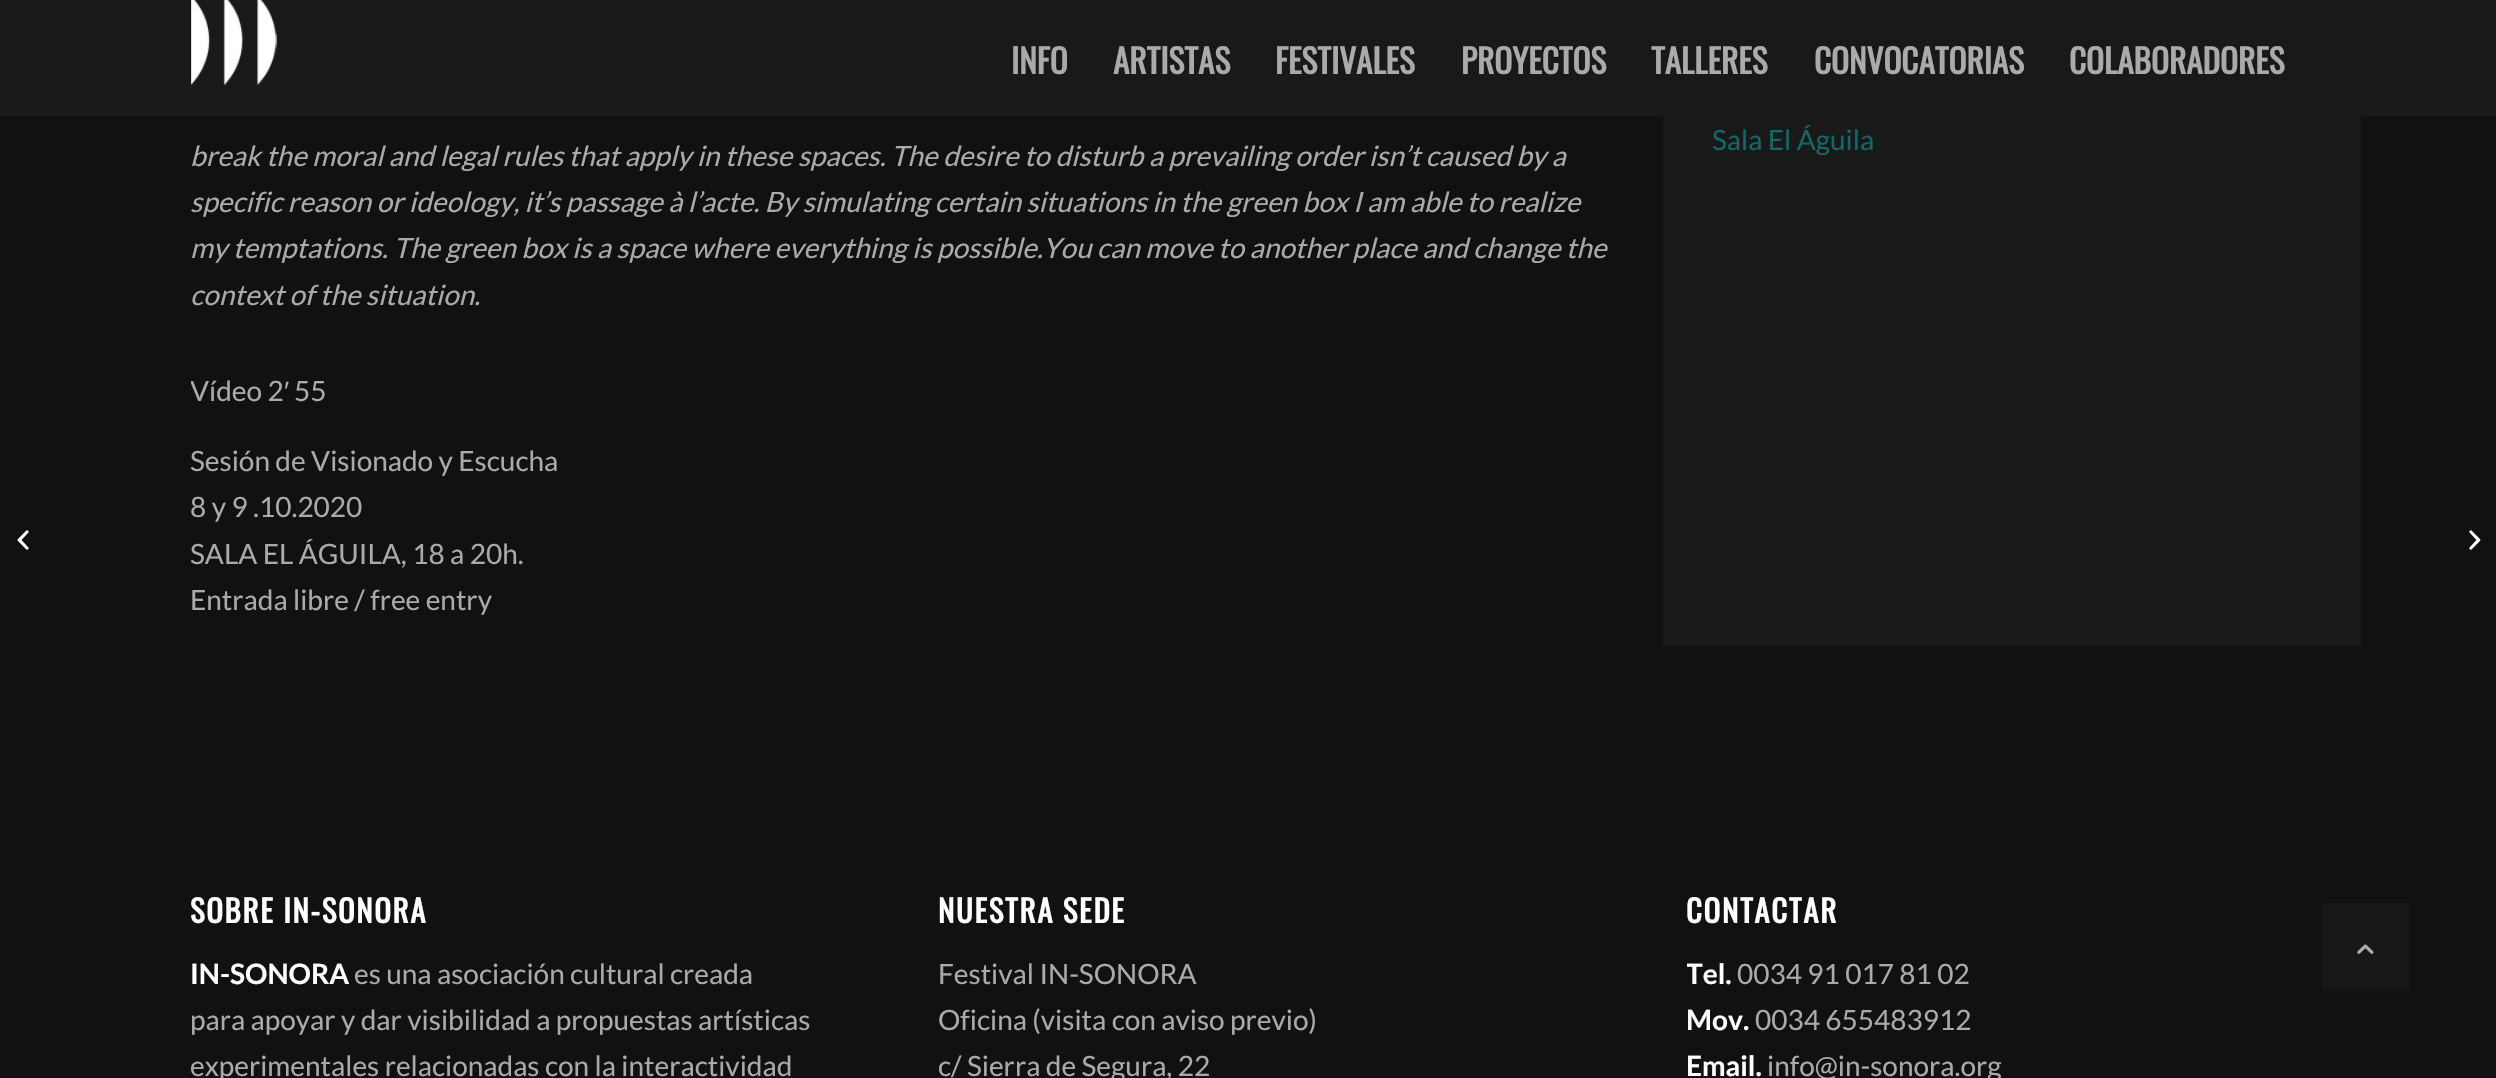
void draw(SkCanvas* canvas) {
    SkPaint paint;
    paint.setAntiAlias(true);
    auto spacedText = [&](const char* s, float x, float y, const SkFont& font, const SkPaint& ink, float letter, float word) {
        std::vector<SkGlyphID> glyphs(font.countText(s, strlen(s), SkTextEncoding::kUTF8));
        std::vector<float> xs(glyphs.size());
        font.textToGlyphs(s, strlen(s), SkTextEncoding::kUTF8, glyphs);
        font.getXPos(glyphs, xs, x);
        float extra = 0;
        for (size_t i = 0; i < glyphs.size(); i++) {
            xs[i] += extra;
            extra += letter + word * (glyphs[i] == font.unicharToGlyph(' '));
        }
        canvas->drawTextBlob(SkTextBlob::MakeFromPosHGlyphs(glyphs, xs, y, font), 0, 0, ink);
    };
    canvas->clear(0xFF111111);
    paint.setColor(0xFF191919);
    canvas->drawRect(SkRect::MakeXYWH(0, 0, 2496, 116), paint);
    canvas->drawImageRect(SkImages::DeferredFromEncodedData(SkData::MakeFromFileName("img1.png")), SkRect::MakeXYWH(191, 0, 86, 86), SkSamplingOptions());
    SkFont font1(fontMgr->matchFamilyStyle("Oswald", SkFontStyle::Bold()), 33.25f);
    font1.setSubpixel(true);
    paint.setColor(0xFFAAAAAA);
    canvas->drawString("INFO", 1011, 74, font1, paint);
    canvas->drawString("ARTISTAS", 1113, 74, font1, paint);
    canvas->drawString("FESTIVALES", 1275, 74, font1, paint);
    canvas->drawString("PROYECTOS", 1461, 74, font1, paint);
    canvas->drawString("TALLERES", 1651, 74, font1, paint);
    canvas->drawString("CONVOCATORIAS", 1814, 74, font1, paint);
    canvas->drawString("COLABORADORES", 2069, 74, font1, paint);
    canvas->drawImageRect(SkImages::DeferredFromEncodedData(SkData::MakeFromFileName("img2.png")), SkRect::MakeXYWH(17, 530, 12, 20), SkSamplingOptions());
    paint.setColor(0xFF191919);
    canvas->drawRect(SkRect::MakeXYWH(1663, 116, 698, 530), paint);
    SkFont font2(fontMgr->matchFamilyStyle("Lato", SkFontStyle::Normal()), 28);
    font2.setSubpixel(true);
    paint.setColor(0xFF146766);
    canvas->drawString("Sala El Águila", 1712, 150, font2, paint);
    SkFont font3(fontMgr->matchFamilyStyle("Lato", SkFontStyle::Italic()), 28);
    font3.setSubpixel(true);
    paint.setColor(0xFFAAAAAA);
    canvas->drawString("break the moral and legal rules that apply in these spaces. The desire to disturb a prevailing order isn’t caused by a", 190, 166, font3, paint);
    canvas->drawString("specific reason or ideology, it’s passage à l’acte. By simulating certain situations in the green box I am able to realize", 190, 212, font3, paint);
    canvas->drawString("my temptations. The green box is a space where everything is possible.You can move to another place and change the", 190, 258, font3, paint);
    canvas->drawString("context of the situation.", 190, 305, font3, paint);
    canvas->save();
    canvas->clipRect(SkRect::MakeXYWH(191, 0, 1417, 646));
    canvas->drawString("Vídeo 2", 190, 401, font2, paint);
    canvas->restore();
    SkFont font4(fontMgr->matchFamilyStyle("Liberation Sans", SkFontStyle::Normal()), 28);
    font4.setSubpixel(true);
    canvas->drawString("′", 284, 401, font4, paint);
    canvas->drawString("55", 294, 401, font2, paint);
    canvas->drawString("Sesión de Visionado y Escucha", 190, 471, font2, paint);
    canvas->drawString("8 y 9 .10.2020", 190, 517, font2, paint);
    canvas->drawString("SALA EL ÁGUILA, 18 a 20h.", 190, 564, font2, paint);
    canvas->drawString("Entrada libre / free entry", 190, 610, font2, paint);
    SkFont font5(fontMgr->matchFamilyStyle("Oswald", SkFontStyle::Bold()), 30.75f);
    font5.setSubpixel(true);
    paint.setColor(0xFFFFFFFF);
    spacedText("SOBRE IN-SONORA", 190, 923, font5, paint, 1.75f, 0);
    SkFont font6(fontMgr->matchFamilyStyle("Lato", SkFontStyle::Bold()), 28);
    font6.setSubpixel(true);
    canvas->drawString("IN-SONORA", 190, 984, font6, paint);
    paint.setColor(0xFFAAAAAA);
    canvas->drawString("es una asociación cultural creada", 354, 984, font2, paint);
    canvas->drawString("para apoyar y dar visibilidad a propuestas artísticas", 190, 1030, font2, paint);
    canvas->drawString("experimentales relacionadas con la interactividad", 190, 1076, font2, paint);
    paint.setColor(0xFFFFFFFF);
    spacedText("NUESTRA SEDE", 938, 923, font5, paint, 1.75f, 0);
    paint.setColor(0xFFAAAAAA);
    canvas->drawString("Festival IN-SONORA", 938, 984, font2, paint);
    canvas->drawString("Oficina (visita con aviso previo)", 938, 1030, font2, paint);
    canvas->drawString("c/ Sierra de Segura, 22", 938, 1076, font2, paint);
    paint.setColor(0xFFFFFFFF);
    spacedText("CONTACTAR", 1686, 923, font5, paint, 1.75f, 0);
    canvas->save();
    canvas->clipRect(SkRect::MakeXYWH(1687, 866, 620, 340));
    canvas->drawString("Tel.", 1686, 984, font6, paint);
    canvas->restore();
    paint.setColor(0xFFAAAAAA);
    canvas->drawString("0034 91 017 81 02", 1737, 984, font2, paint);
    paint.setColor(0xFFFFFFFF);
    canvas->drawString("Mov.", 1686, 1030, font6, paint);
    paint.setColor(0xFFAAAAAA);
    canvas->drawString("0034 655483912", 1755, 1030, font2, paint);
    paint.setColor(0xFFFFFFFF);
    canvas->drawString("Email.", 1686, 1076, font6, paint);
    paint.setColor(0xFFAAAAAA);
    canvas->drawString("info@in-sonora.org", 1767, 1076, font2, paint);
    canvas->drawImageRect(SkImages::DeferredFromEncodedData(SkData::MakeFromFileName("img3.png")), SkRect::MakeXYWH(2469, 530, 12, 20), SkSamplingOptions());
    paint.setColor(0xFF171717);
    canvas->drawRoundRect(SkRect::MakeXYWH(2322, 903, 88, 88), 4, 4, paint);
    canvas->drawImageRect(SkImages::DeferredFromEncodedData(SkData::MakeFromFileName("img4.png")), SkRect::MakeXYWH(2357, 944, 17, 10), SkSamplingOptions());
}
